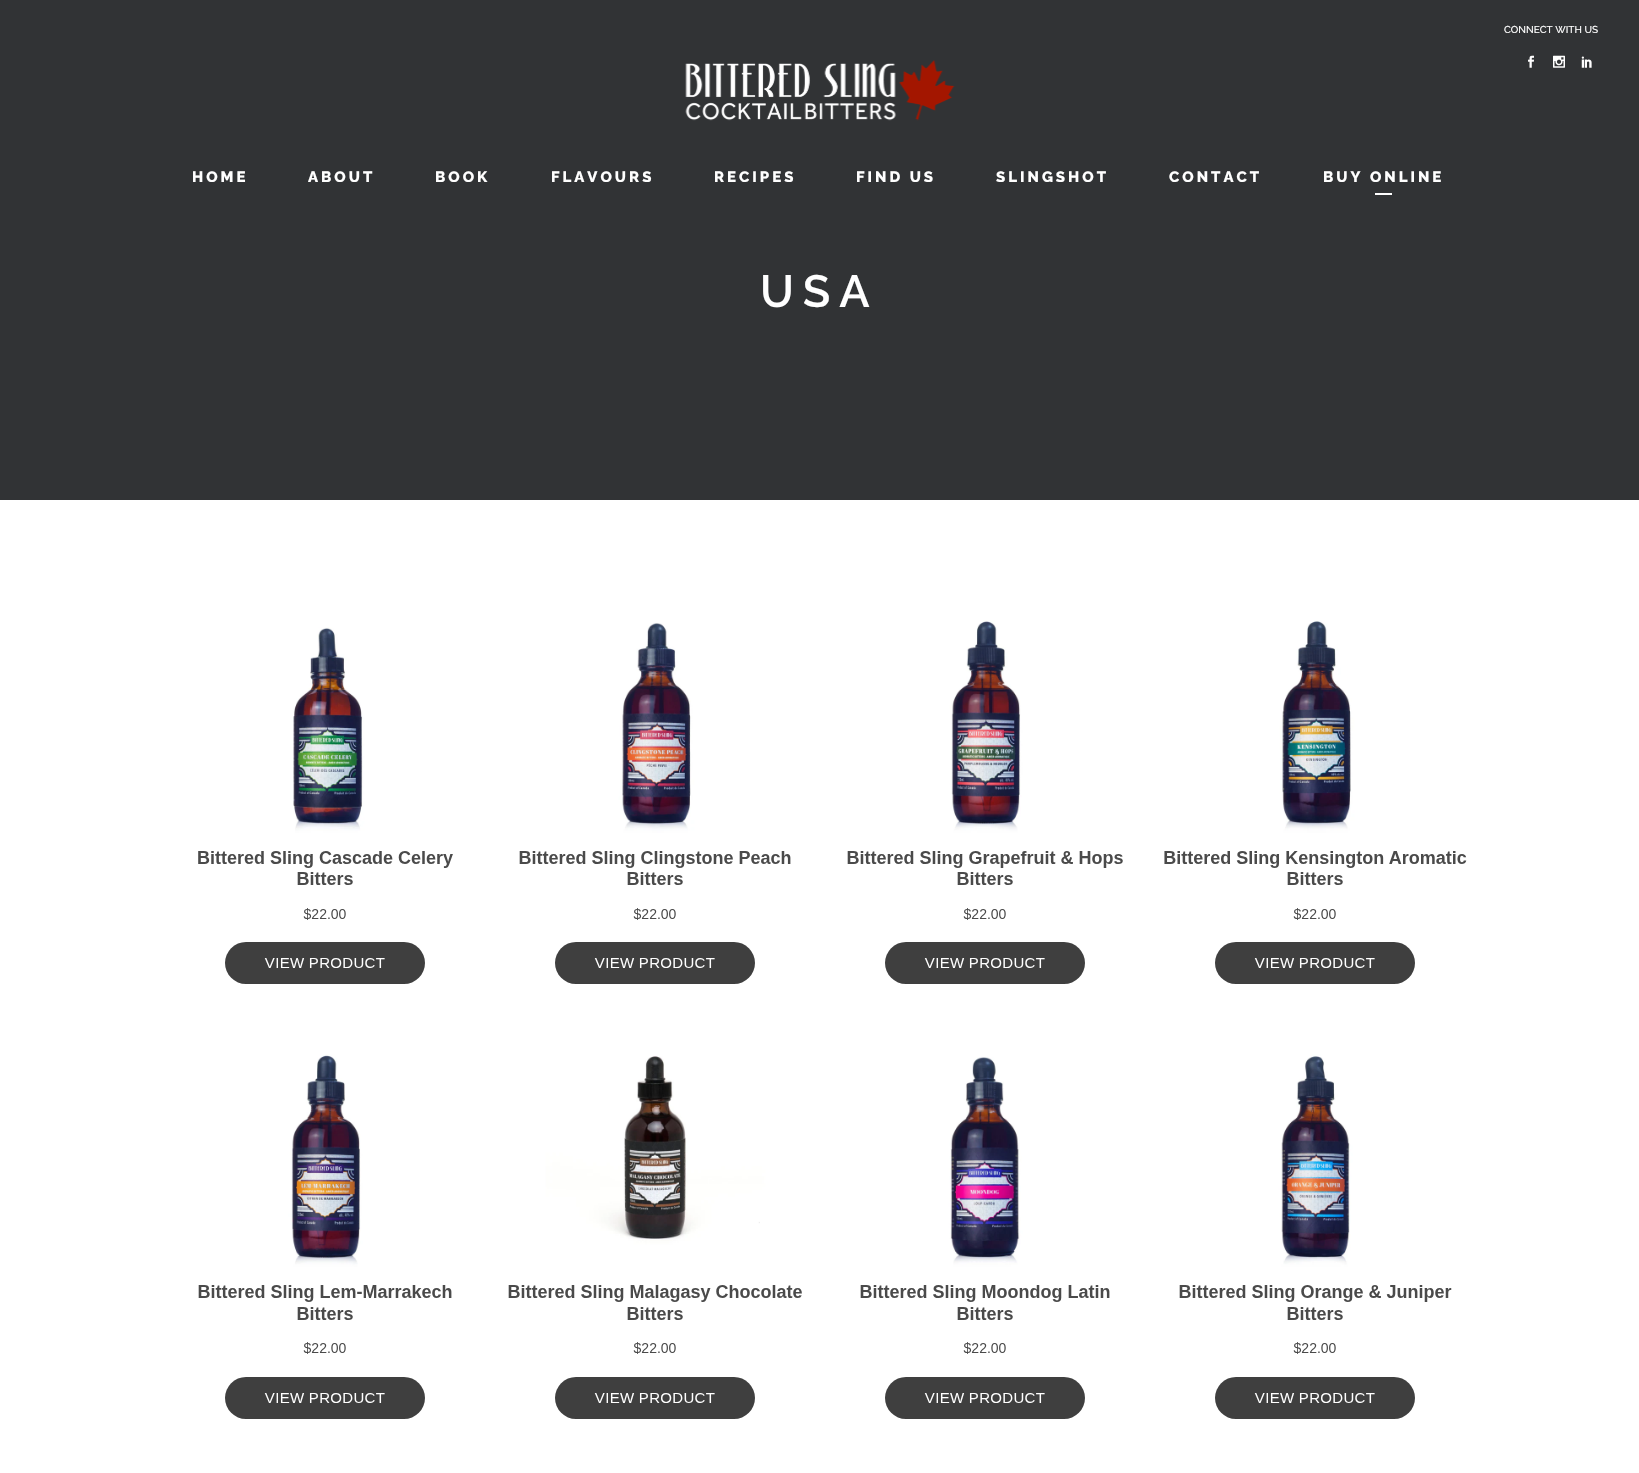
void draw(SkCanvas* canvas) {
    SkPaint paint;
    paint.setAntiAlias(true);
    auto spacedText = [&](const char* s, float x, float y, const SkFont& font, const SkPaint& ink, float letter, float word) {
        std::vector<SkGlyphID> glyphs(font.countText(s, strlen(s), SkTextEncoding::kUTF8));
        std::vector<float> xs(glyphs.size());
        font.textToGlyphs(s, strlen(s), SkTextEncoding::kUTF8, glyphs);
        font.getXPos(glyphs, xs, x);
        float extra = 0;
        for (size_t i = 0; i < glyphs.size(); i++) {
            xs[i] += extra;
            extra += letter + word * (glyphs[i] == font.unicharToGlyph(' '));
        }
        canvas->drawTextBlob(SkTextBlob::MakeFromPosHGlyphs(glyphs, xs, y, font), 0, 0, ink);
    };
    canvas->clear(0xFFFFFFFF);
    paint.setColor(0xFF313335);
    canvas->drawRect(SkRect::MakeXYWH(0, 0, 1639, 500), paint);
    SkFont font1(fontMgr->matchFamilyStyle("Raleway", SkFontStyle(500, SkFontStyle::kNormal_Width, SkFontStyle::kUpright_Slant)), 10);
    font1.setSubpixel(true);
    paint.setColor(0xFFFFFFFF);
    canvas->drawString("CONNECT WITH US", 1504, 33, font1, paint);
    canvas->drawImageRect(SkImages::DeferredFromEncodedData(SkData::MakeFromFileName("img1.png")), SkRect::MakeXYWH(1528, 55, 6, 13), SkSamplingOptions());
    canvas->drawImageRect(SkImages::DeferredFromEncodedData(SkData::MakeFromFileName("img2.png")), SkRect::MakeXYWH(1553, 55, 12, 13), SkSamplingOptions());
    canvas->drawImageRect(SkImages::DeferredFromEncodedData(SkData::MakeFromFileName("img3.png")), SkRect::MakeXYWH(1581, 56, 11, 12), SkSamplingOptions());
    canvas->drawImageRect(SkImages::DeferredFromEncodedData(SkData::MakeFromFileName("img4.png")), SkRect::MakeXYWH(685, 60, 270, 61), SkSamplingOptions());
    SkFont font2(fontMgr->matchFamilyStyle("Raleway", SkFontStyle(800, SkFontStyle::kNormal_Width, SkFontStyle::kUpright_Slant)), 15);
    font2.setSubpixel(true);
    spacedText("HOME", 192, 182, font2, paint, 3, 0);
    spacedText("ABOUT", 308, 182, font2, paint, 3, 0);
    spacedText("BOOK", 435, 182, font2, paint, 3, 0);
    spacedText("FLAVOURS", 551, 182, font2, paint, 3, 0);
    spacedText("RECIPES", 714, 182, font2, paint, 3, 0);
    spacedText("FIND US", 856, 182, font2, paint, 3, 0);
    spacedText("SLINGSHOT", 996, 182, font2, paint, 3, 0);
    spacedText("CONTACT", 1169, 182, font2, paint, 3, 0);
    spacedText("BUY ONLINE", 1323, 182, font2, paint, 3, 0);
    canvas->drawRect(SkRect::MakeXYWH(1375, 193, 17, 2), paint);
    SkFont font3(fontMgr->matchFamilyStyle("Raleway", SkFontStyle(600, SkFontStyle::kNormal_Width, SkFontStyle::kUpright_Slant)), 45);
    font3.setSubpixel(true);
    spacedText("USA", 760, 307, font3, paint, 9, 0);
    canvas->drawImageRect(SkImages::DeferredFromEncodedData(SkData::MakeFromFileName("img5.png")), SkRect::MakeXYWH(198, 620, 1269, 799), SkSamplingOptions());
}
